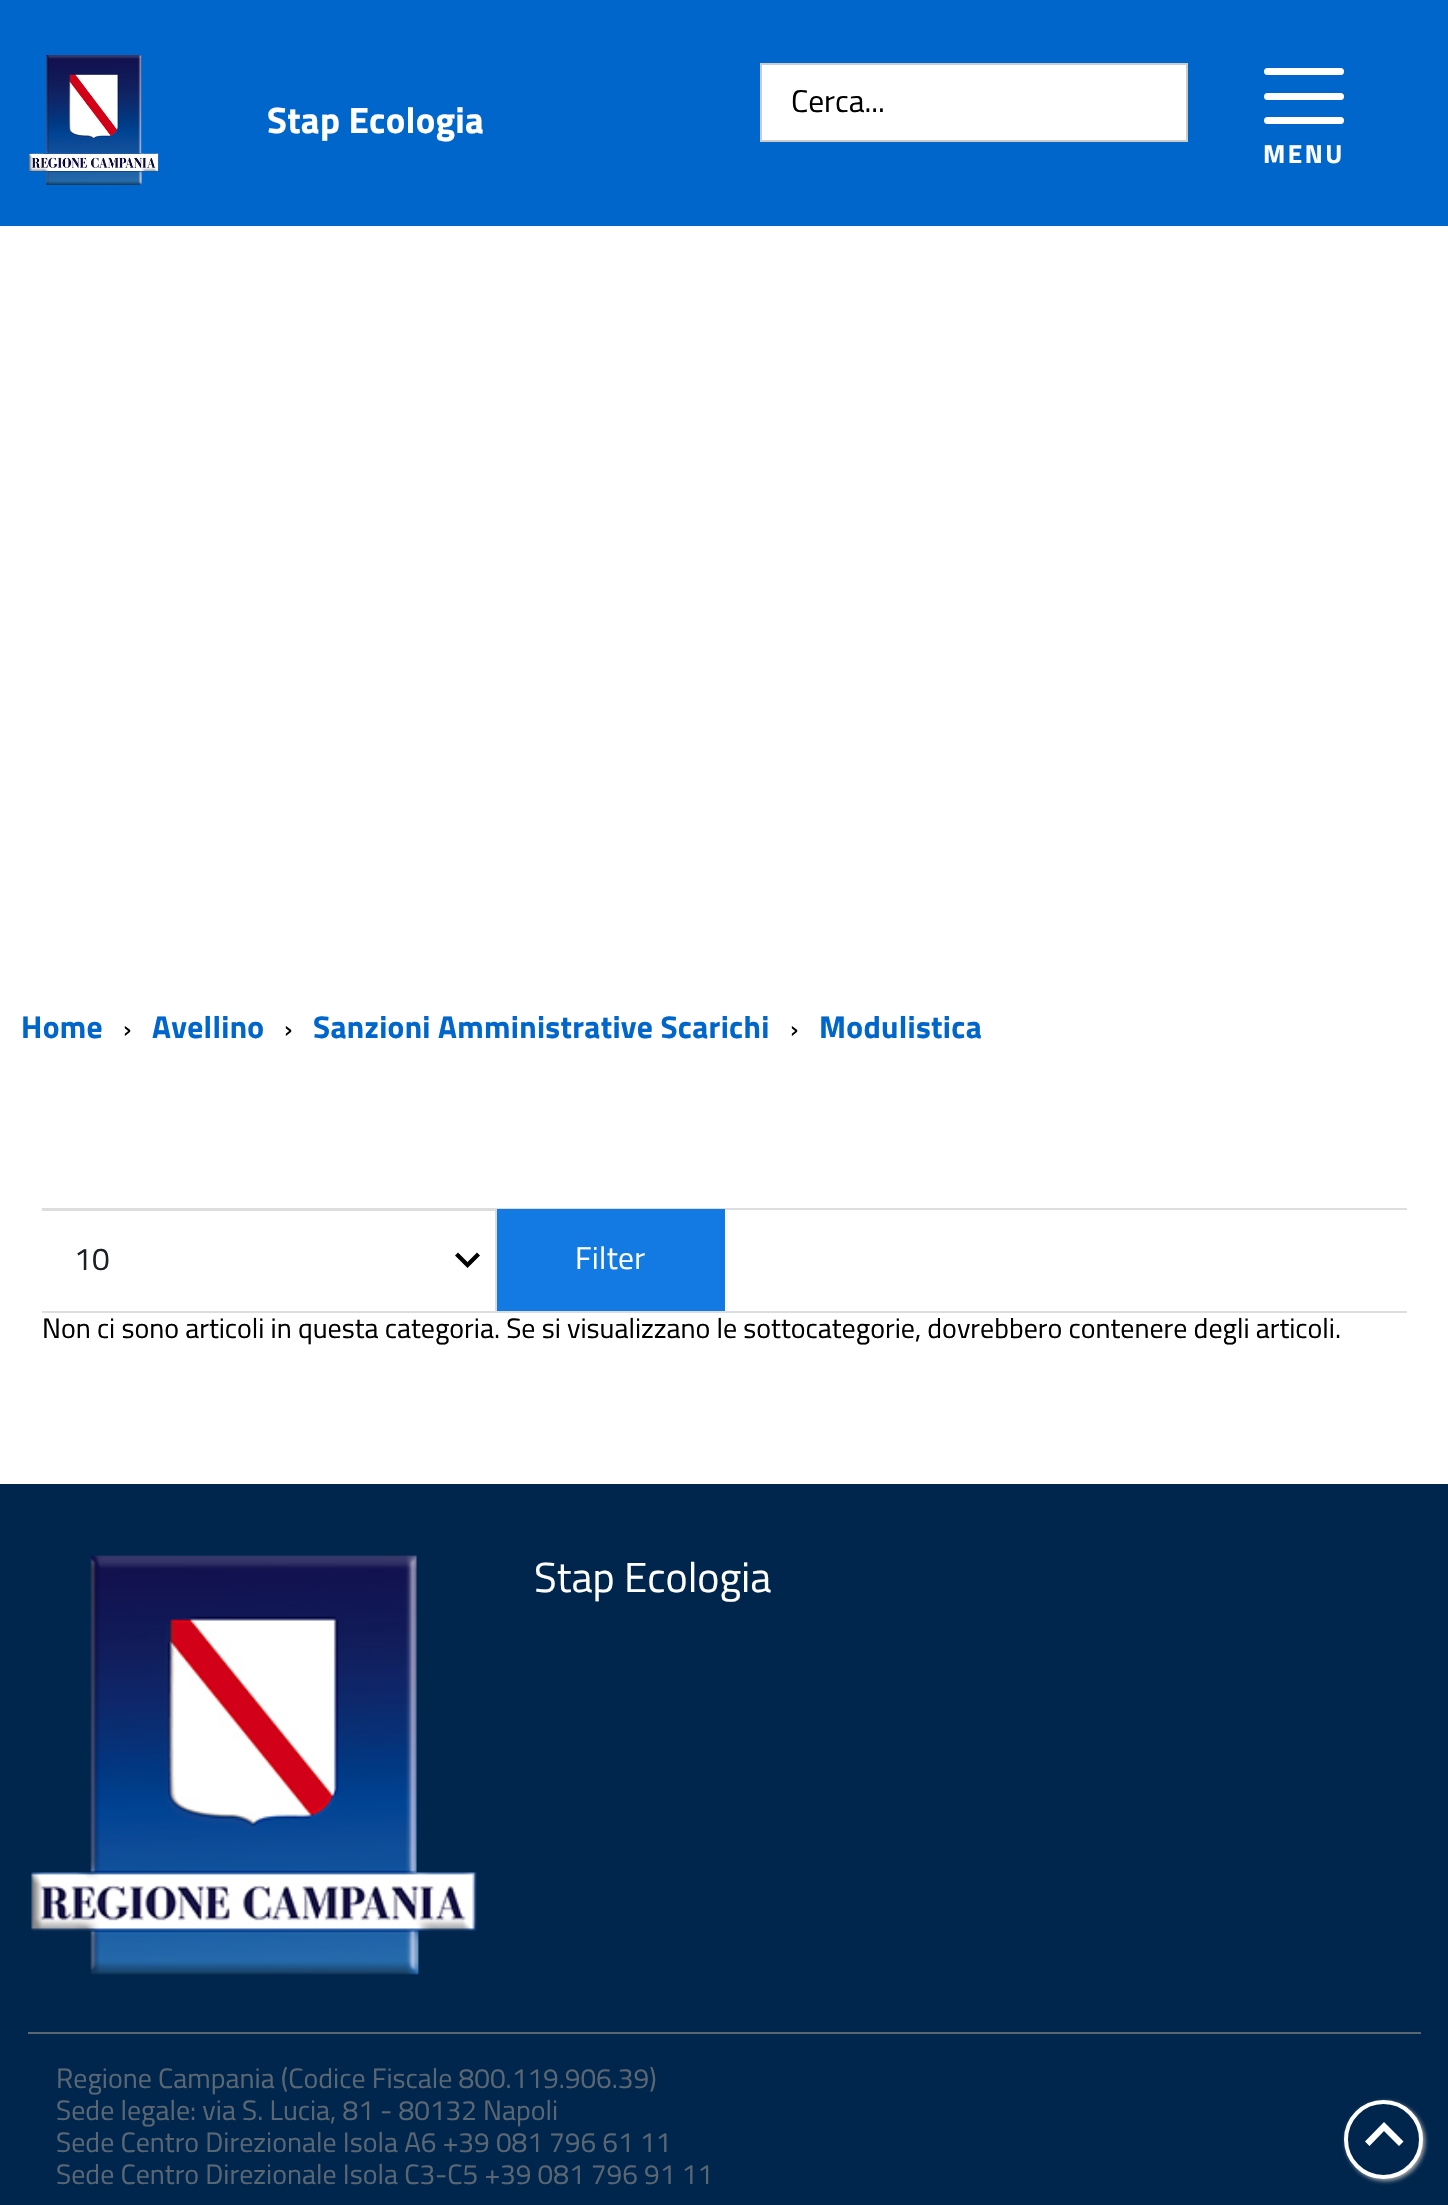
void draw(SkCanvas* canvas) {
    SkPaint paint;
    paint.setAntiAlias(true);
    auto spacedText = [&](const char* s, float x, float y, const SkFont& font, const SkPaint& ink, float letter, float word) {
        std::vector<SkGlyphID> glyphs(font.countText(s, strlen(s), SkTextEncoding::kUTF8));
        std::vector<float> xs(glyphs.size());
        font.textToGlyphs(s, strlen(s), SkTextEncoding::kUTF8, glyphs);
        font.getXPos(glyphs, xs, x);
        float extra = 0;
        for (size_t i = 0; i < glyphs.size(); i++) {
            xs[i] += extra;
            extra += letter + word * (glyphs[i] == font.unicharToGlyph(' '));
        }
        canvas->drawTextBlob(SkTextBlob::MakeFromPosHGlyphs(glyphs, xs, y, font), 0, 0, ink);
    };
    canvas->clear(0xFFFFFFFF);
    paint.setColor(0xFF0066CC);
    canvas->drawRect(SkRect::MakeXYWH(0, 0, 1448, 226), paint);
    canvas->drawImageRect(SkImages::DeferredFromEncodedData(SkData::MakeFromFileName("img1.png")), SkRect::MakeXYWH(29, 55, 130, 130), SkSamplingOptions());
    paint.setColor(0xFFFFFFFF);
    canvas->drawRect(SkRect::MakeXYWH(761, 64, 426, 77), paint);
    paint.setStyle(SkPaint::kStroke_Style);
    paint.setStrokeWidth(2);
    paint.setColor(0xFFCCCCCC);
    canvas->drawRect(SkRect::MakeXYWH(761, 64, 426, 77), paint);
    SkFont font1(fontMgr->matchFamilyStyle("Titillium Web", SkFontStyle::Normal()), 31.5f);
    font1.setSubpixel(true);
    paint.setStyle(SkPaint::kFill_Style);
    paint.setColor(0xFF000000);
    canvas->drawString("Cerca...", 791, 112, font1, paint);
    SkFont font2(fontMgr->matchFamilyStyle("Titillium Web", SkFontStyle::Bold()), 36.75f);
    font2.setSubpixel(true);
    paint.setColor(0xFFFFFFFF);
    spacedText("Stap Ecologia", 267, 133, font2, paint, 0.25f, 0);
    canvas->drawRoundRect(SkRect::MakeXYWH(1264, 93, 80, 7), 3.5f, 3.5f, paint);
    canvas->drawRoundRect(SkRect::MakeXYWH(1264, 68, 80, 7), 3.5f, 3.5f, paint);
    canvas->drawRoundRect(SkRect::MakeXYWH(1264, 117, 80, 7), 3.5f, 3.5f, paint);
    SkFont font3(fontMgr->matchFamilyStyle("Titillium Web", SkFontStyle::Bold()), 26);
    font3.setSubpixel(true);
    spacedText("MENU", 1263, 163, font3, paint, 2.5f, 0);
    SkFont font4(fontMgr->matchFamilyStyle("Titillium Web", SkFontStyle::Bold()), 31.5f);
    font4.setSubpixel(true);
    paint.setColor(0xFF0066CC);
    spacedText("Home", 21, 1038, font4, paint, 0.3f, 0);
    SkFont font5(fontMgr->matchFamilyStyle("Titillium Web", SkFontStyle::Normal()), 28);
    font5.setSubpixel(true);
    paint.setColor(0xFF000000);
    canvas->drawString("›", 123, 1038, font5, paint);
    paint.setColor(0xFF0066CC);
    spacedText("Avellino", 152, 1038, font4, paint, 0.3f, 0);
    paint.setColor(0xFF000000);
    canvas->drawString("›", 284, 1038, font5, paint);
    paint.setColor(0xFF0066CC);
    spacedText("Sanzioni Amministrative Scarichi", 313, 1038, font4, paint, 0.3f, 0);
    paint.setColor(0xFF000000);
    canvas->drawString("›", 790, 1038, font5, paint);
    paint.setColor(0xFF0066CC);
    spacedText("Modulistica", 819, 1038, font4, paint, 0.3f, 0);
    paint.setColor(0xFFDDDDDD);
    canvas->drawRect(SkRect::MakeXYWH(42, 1208, 1365, 2), paint);
    canvas->drawRect(SkRect::MakeXYWH(42, 1311, 1365, 2), paint);
    canvas->drawRect(SkRect::MakeXYWH(42, 1210, 455, 1), paint);
    canvas->drawRect(SkRect::MakeXYWH(495, 1209, 2, 102), paint);
    paint.setColor(0xFF000000);
    canvas->drawPath(SkPathBuilder().moveTo(458, 1252.5f).lineTo(455, 1255.5f).lineTo(467.5f, 1268).lineTo(480, 1255.5f).lineTo(477, 1252.5f).lineTo(467.5f, 1262).close().detach(), paint);
    paint.setColor(0xFF1C2024);
    spacedText("10", 74, 1270, font1, paint, 0.3f, 0);
    paint.setColor(0xFF127AE2);
    canvas->drawRect(SkRect::MakeXYWH(497, 1209, 228, 102), paint);
    paint.setColor(0xFFFFFFFF);
    spacedText("Filter", 575, 1269, font1, paint, 0.3f, 0);
    paint.setColor(0xFF000000);
    canvas->drawString("Non ci sono articoli in questa categoria. Se si visualizzano le sottocategorie, dovrebbero contenere degli articoli.", 42, 1338, font5, paint);
    paint.setColor(0xFF00264D);
    canvas->drawRect(SkRect::MakeXYWH(0, 1484, 1448, 721), paint);
    canvas->drawImageRect(SkImages::DeferredFromEncodedData(SkData::MakeFromFileName("img2.png")), SkRect::MakeXYWH(31, 1555, 446, 420), SkSamplingOptions());
    SkFont font6(fontMgr->matchFamilyStyle("Titillium Web", SkFontStyle::Normal()), 42);
    font6.setSubpixel(true);
    paint.setColor(0xFFFFFFFF);
    canvas->drawString("Stap Ecologia", 534, 1592, font6, paint);
    paint.setColor(0xFF5A6772);
    canvas->drawRect(SkRect::MakeXYWH(28, 2032, 1393, 2), paint);
    canvas->drawString("Regione Campania (Codice Fiscale 800.119.906.39)", 56, 2088, font5, paint);
    canvas->drawString("Sede legale: via S. Lucia, 81 - 80132 Napoli", 56, 2120, font5, paint);
    canvas->drawString("Sede Centro Direzionale Isola A6 +39 081 796 61 11", 56, 2152, font5, paint);
    canvas->drawString("Sede Centro Direzionale Isola C3-C5 +39 081 796 91 11", 56, 2184, font5, paint);
    paint.setColor(0xFFAAAAAA);
    paint.setMaskFilter(SkMaskFilter::MakeBlur(kNormal_SkBlurStyle, 2));
    canvas->drawRoundRect(SkRect::MakeXYWH(1346, 2102, 79, 79), 39.5f, 39.5f, paint);
    paint.setMaskFilter(nullptr);
    paint.setColor(0xFF00264D);
    canvas->drawCircle(1383.5f, 2139.5f, 37.5f, paint);
    paint.setStyle(SkPaint::kStroke_Style);
    paint.setStrokeWidth(4);
    paint.setColor(0xFFFFFFFF);
    canvas->drawCircle(1383.5f, 2139.5f, 37.5f, paint);
    paint.setStyle(SkPaint::kFill_Style);
    canvas->drawPath(SkPathBuilder().moveTo(1399, 2146).lineTo(1403.5f, 2141.5f).lineTo(1384, 2122).lineTo(1365, 2141.5f).lineTo(1369.5f, 2146).lineTo(1384, 2131).close().detach(), paint);
}
